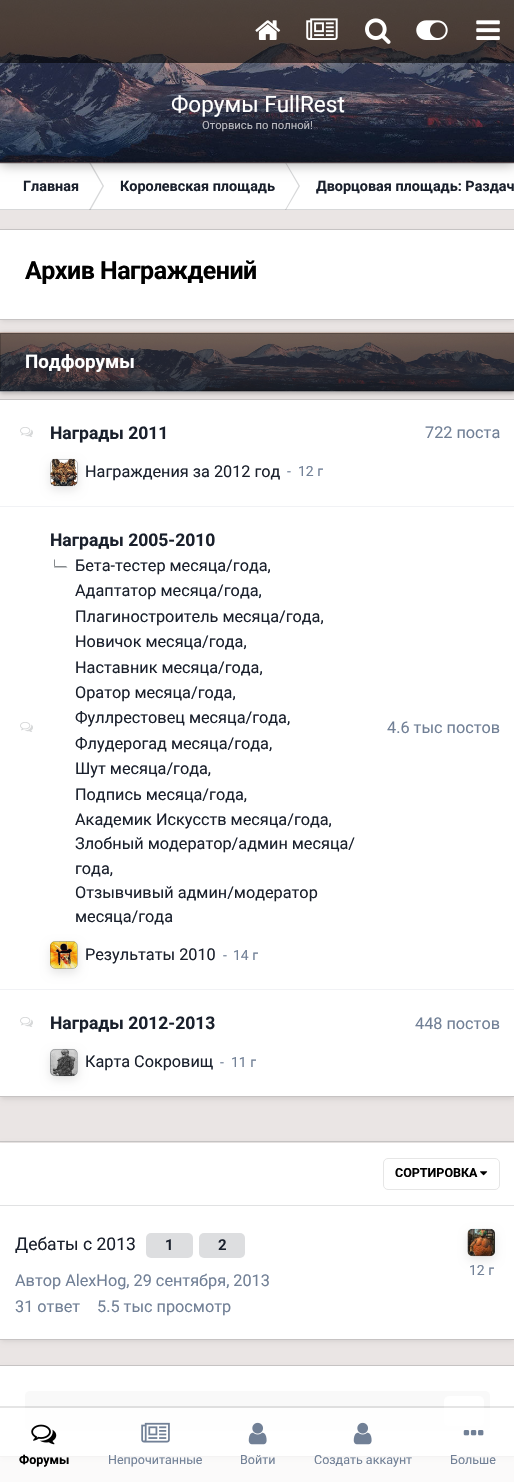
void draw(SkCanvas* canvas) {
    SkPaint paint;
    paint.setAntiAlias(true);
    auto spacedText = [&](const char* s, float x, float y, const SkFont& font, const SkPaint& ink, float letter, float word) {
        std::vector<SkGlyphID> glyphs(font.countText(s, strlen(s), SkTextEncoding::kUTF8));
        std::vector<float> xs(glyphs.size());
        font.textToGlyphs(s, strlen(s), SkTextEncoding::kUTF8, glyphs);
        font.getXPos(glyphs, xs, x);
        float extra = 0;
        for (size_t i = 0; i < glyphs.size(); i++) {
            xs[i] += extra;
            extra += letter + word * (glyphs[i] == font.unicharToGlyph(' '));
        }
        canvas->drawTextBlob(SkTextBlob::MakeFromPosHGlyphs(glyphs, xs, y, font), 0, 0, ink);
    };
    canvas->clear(0xFFEAE5E4);
    paint.setColor(0xFFFFFFFF);
    canvas->drawRect(SkRect::MakeXYWH(0, 163, 514, 47), paint);
    paint.setColor(0xFFD7D8D9);
    canvas->drawPath(SkPathBuilder().moveTo(89, 162.5f).lineTo(90.5f, 162.5f).lineTo(104, 186).lineTo(102.5f, 186).close().moveTo(89, 210).lineTo(90.5f, 210).lineTo(104, 186).lineTo(102.5f, 186).close().detach(), paint);
    canvas->drawPath(SkPathBuilder().moveTo(285, 162.5f).lineTo(286, 162.5f).lineTo(300, 186).lineTo(298.5f, 186).close().moveTo(285, 210).lineTo(286, 210).lineTo(300, 186).lineTo(298.5f, 186).close().detach(), paint);
    paint.setColor(0x33353C41);
    canvas->drawRect(SkRect::MakeXYWH(0, 163, 514, 1), paint);
    paint.setColor(0x59000000);
    paint.setMaskFilter(SkMaskFilter::MakeBlur(kNormal_SkBlurStyle, 6));
    canvas->drawRect(SkRect::MakeXYWH(0, 1, 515, 163), paint);
    paint.setMaskFilter(nullptr);
    paint.setColor(0xFF8B6E6A);
    canvas->drawRect(SkRect::MakeXYWH(0, 162, 514, 1), paint);
    canvas->drawImageRect(SkImages::DeferredFromEncodedData(SkData::MakeFromFileName("img1.png")), SkRect::MakeXYWH(0, 0, 514, 163), SkSamplingOptions());
    paint.setColor(0x99000000);
    canvas->drawRect(SkRect::MakeXYWH(0, 0, 514, 63), paint);
    canvas->drawImageRect(SkImages::DeferredFromEncodedData(SkData::MakeFromFileName("img2.png")), SkRect::MakeXYWH(255, 20, 26, 20), SkSamplingOptions());
    canvas->drawImageRect(SkImages::DeferredFromEncodedData(SkData::MakeFromFileName("img3.png")), SkRect::MakeXYWH(306, 18, 32, 22), SkSamplingOptions());
    canvas->drawImageRect(SkImages::DeferredFromEncodedData(SkData::MakeFromFileName("img4.png")), SkRect::MakeXYWH(365, 18, 26, 26), SkSamplingOptions());
    canvas->drawImageRect(SkImages::DeferredFromEncodedData(SkData::MakeFromFileName("img5.png")), SkRect::MakeXYWH(416, 20, 32, 20), SkSamplingOptions());
    canvas->drawImageRect(SkImages::DeferredFromEncodedData(SkData::MakeFromFileName("img6.png")), SkRect::MakeXYWH(476, 20, 24, 20), SkSamplingOptions());
    SkFont font1(fontMgr->matchFamilyStyle("Roboto", SkFontStyle::Normal()), 22.5f);
    font1.setSubpixel(true);
    paint.setColor(0xFFFFFFFF);
    canvas->drawString("Форумы FullRest", 171, 112, font1, paint);
    SkFont font2(fontMgr->matchFamilyStyle("Roboto", SkFontStyle::Normal()), 11.25f);
    font2.setSubpixel(true);
    paint.setColor(0xFFBBBCC2);
    canvas->drawString("Оторвись по полной!", 202, 129, font2, paint);
    paint.setColor(0x33353C41);
    canvas->drawRect(SkRect::MakeXYWH(0, 209, 514, 1), paint);
    SkFont font3(fontMgr->matchFamilyStyle("Roboto", SkFontStyle::Bold()), 14.4f);
    font3.setSubpixel(true);
    paint.setColor(0xFF1A202C);
    canvas->drawString("Главная", 23, 191, font3, paint);
    canvas->drawString("Королевская площадь", 120, 191, font3, paint);
    canvas->drawString("Дворцовая площадь: Раздач", 316, 191, font3, paint);
    paint.setColor(0x1A000000);
    paint.setMaskFilter(SkMaskFilter::MakeBlur(kNormal_SkBlurStyle, 2.5f));
    canvas->drawRect(SkRect::MakeXYWH(1, 233, 513, 88), paint);
    paint.setMaskFilter(nullptr);
    paint.setColor(0xFFFFFFFF);
    canvas->drawRect(SkRect::MakeXYWH(0, 230, 514, 89), paint);
    paint.setColor(0xFFC6C3C3);
    canvas->drawRect(SkRect::MakeXYWH(0, 229, 514, 1), paint);
    canvas->drawRect(SkRect::MakeXYWH(0, 319, 514, 1), paint);
    SkFont font4(fontMgr->matchFamilyStyle("Roboto", SkFontStyle::Bold()), 25);
    font4.setSubpixel(true);
    paint.setColor(0xFF000000);
    spacedText("Архив Награждений", 25, 279, font4, paint, -0.5f, 0);
    paint.setColor(0x4D000000);
    paint.setMaskFilter(SkMaskFilter::MakeBlur(kNormal_SkBlurStyle, 2.5f));
    canvas->drawRect(SkRect::MakeXYWH(0, 334, 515, 59), paint);
    paint.setMaskFilter(nullptr);
    canvas->drawImageRect(SkImages::DeferredFromEncodedData(SkData::MakeFromFileName("img7.png")), SkRect::MakeXYWH(0, 332, 514, 60), SkSamplingOptions());
    paint.setStyle(SkPaint::kStroke_Style);
    paint.setStrokeWidth(1);
    paint.setColor(0x33000000);
    canvas->drawRect(SkRect::MakeXYWH(0.5f, 333.5f, 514, 57), paint);
    SkFont font5(fontMgr->matchFamilyStyle("Roboto", SkFontStyle::Bold()), 18.75f);
    font5.setSubpixel(true);
    paint.setStyle(SkPaint::kFill_Style);
    paint.setColor(0xFFFFFFFF);
    canvas->drawString("Подфорумы", 25, 368, font5, paint);
    paint.setColor(0x1A000000);
    paint.setMaskFilter(SkMaskFilter::MakeBlur(kNormal_SkBlurStyle, 2.5f));
    canvas->drawRect(SkRect::MakeXYWH(1, 403, 513, 696), paint);
    paint.setMaskFilter(nullptr);
    paint.setColor(0xFFFFFFFF);
    canvas->drawRect(SkRect::MakeXYWH(0, 400, 514, 696), paint);
    paint.setColor(0xFFC6C3C3);
    canvas->drawRect(SkRect::MakeXYWH(0, 399, 514, 1), paint);
    canvas->drawRect(SkRect::MakeXYWH(0, 1096, 514, 1), paint);
    paint.setColor(0xFFF1F2F5);
    canvas->drawRect(SkRect::MakeXYWH(0, 506, 514, 1), paint);
    canvas->drawImageRect(SkImages::DeferredFromEncodedData(SkData::MakeFromFileName("img8.png")), SkRect::MakeXYWH(20, 427, 13, 10), SkSamplingOptions());
    SkFont font6(fontMgr->matchFamilyStyle("Roboto", SkFontStyle::Bold()), 17.5f);
    font6.setSubpixel(true);
    paint.setColor(0xFF1A202C);
    canvas->drawString("Награды 2011", 50, 439, font6, paint);
    SkFont font7(fontMgr->matchFamilyStyle("Roboto", SkFontStyle::Normal()), 16.25f);
    font7.setSubpixel(true);
    paint.setColor(0xFF718096);
    canvas->drawString("722 поста", 425, 438, font7, paint);
    canvas->drawImageRect(SkImages::DeferredFromEncodedData(SkData::MakeFromFileName("img9.png")), SkRect::MakeXYWH(50, 458, 28, 29), SkSamplingOptions());
    canvas->save();
    canvas->clipPath(SkPathBuilder(SkPathFillType::kEvenOdd).moveTo(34, 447).lineTo(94, 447).lineTo(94, 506).lineTo(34, 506).close().moveTo(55, 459).lineTo(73, 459).cubicTo(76, 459, 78, 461, 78, 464).lineTo(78, 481).cubicTo(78, 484, 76, 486, 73, 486).lineTo(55, 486).cubicTo(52, 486, 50, 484, 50, 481).lineTo(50, 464).cubicTo(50, 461, 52, 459, 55, 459).close().detach(), true);
    paint.setColor(0x1A000000);
    paint.setMaskFilter(SkMaskFilter::MakeBlur(kNormal_SkBlurStyle, 5));
    canvas->drawRoundRect(SkRect::MakeXYWH(50, 463, 28, 27), 5, 5, paint);
    paint.setMaskFilter(nullptr);
    canvas->restore();
    paint.setStyle(SkPaint::kStroke_Style);
    paint.setColor(0x4D353C41);
    canvas->drawRoundRect(SkRect::MakeXYWH(50.5f, 459.5f, 27, 26), 4.5f, 4.5f, paint);
    paint.setStyle(SkPaint::kFill_Style);
    paint.setColor(0xFF1A202C);
    canvas->drawString("Награждения за 2012 год", 85, 477, font7, paint);
    SkFont font8(fontMgr->matchFamilyStyle("Roboto", SkFontStyle::Normal()), 14);
    font8.setSubpixel(true);
    paint.setColor(0xFF718096);
    canvas->drawString("-", 287, 476, font8, paint);
    canvas->drawString("12 г", 298, 476, font8, paint);
    paint.setColor(0xFFF1F2F5);
    canvas->drawRect(SkRect::MakeXYWH(0, 989, 514, 1), paint);
    canvas->drawImageRect(SkImages::DeferredFromEncodedData(SkData::MakeFromFileName("img8.png")), SkRect::MakeXYWH(20, 722, 13, 10), SkSamplingOptions());
    paint.setColor(0xFF1A202C);
    canvas->drawString("Награды 2005-2010", 50, 546, font6, paint);
    paint.setColor(0xFF868A8D);
    canvas->drawPath(SkPathBuilder().moveTo(67.5f, 567.5f).lineTo(54, 567.5f).lineTo(55, 566).lineTo(66, 566).close().detach(), paint);
    canvas->drawPath(SkPathBuilder().moveTo(54, 567.5f).lineTo(54, 559).lineTo(55, 560).lineTo(55, 566).close().detach(), paint);
    paint.setColor(0xFF1A202C);
    canvas->drawString("Бета-тестер месяца/года,", 75, 571, font7, paint);
    canvas->drawString("Адаптатор месяца/года,", 75, 596, font7, paint);
    canvas->drawString("Плагиностроитель месяца/года,", 75, 622, font7, paint);
    canvas->drawString("Новичок месяца/года,", 75, 647, font7, paint);
    canvas->drawString("Наставник месяца/года,", 75, 673, font7, paint);
    canvas->drawString("Оратор месяца/года,", 75, 698, font7, paint);
    canvas->drawString("Фуллрестовец месяца/года,", 75, 723, font7, paint);
    canvas->drawString("Флудерогад месяца/года,", 75, 749, font7, paint);
    canvas->drawString("Шут месяца/года,", 75, 774, font7, paint);
    canvas->drawString("Подпись месяца/года,", 75, 800, font7, paint);
    canvas->drawString("Академик Искусств месяца/года,", 75, 825, font7, paint);
    canvas->drawString("Злобный модератор/админ месяца/", 75, 849, font7, paint);
    canvas->drawString("года,", 75, 874, font7, paint);
    canvas->drawString("Отзывчивый админ/модератор", 75, 898, font7, paint);
    canvas->drawString("месяца/года", 75, 922, font7, paint);
    paint.setColor(0xFF718096);
    canvas->drawString("4.6 тыс постов", 387, 733, font7, paint);
    canvas->drawImageRect(SkImages::DeferredFromEncodedData(SkData::MakeFromFileName("img10.png")), SkRect::MakeXYWH(50, 941, 28, 28), SkSamplingOptions());
    canvas->save();
    canvas->clipPath(SkPathBuilder(SkPathFillType::kEvenOdd).moveTo(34, 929).lineTo(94, 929).lineTo(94, 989).lineTo(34, 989).close().moveTo(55, 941).lineTo(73, 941).cubicTo(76, 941, 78, 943, 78, 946).lineTo(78, 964).cubicTo(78, 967, 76, 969, 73, 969).lineTo(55, 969).cubicTo(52, 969, 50, 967, 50, 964).lineTo(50, 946).cubicTo(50, 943, 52, 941, 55, 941).close().detach(), true);
    paint.setColor(0x1A000000);
    paint.setMaskFilter(SkMaskFilter::MakeBlur(kNormal_SkBlurStyle, 5));
    canvas->drawRoundRect(SkRect::MakeXYWH(50, 945, 28, 28), 5, 5, paint);
    paint.setMaskFilter(nullptr);
    canvas->restore();
    paint.setStyle(SkPaint::kStroke_Style);
    paint.setColor(0x4D353C41);
    canvas->drawRoundRect(SkRect::MakeXYWH(50.5f, 941.5f, 27, 27), 4.5f, 4.5f, paint);
    paint.setStyle(SkPaint::kFill_Style);
    paint.setColor(0xFF1A202C);
    canvas->drawString("Результаты 2010", 85, 960, font7, paint);
    paint.setColor(0xFF718096);
    canvas->drawString("-", 223, 960, font8, paint);
    canvas->drawString("14 г", 233, 960, font8, paint);
    canvas->drawImageRect(SkImages::DeferredFromEncodedData(SkData::MakeFromFileName("img8.png")), SkRect::MakeXYWH(20, 1017, 13, 10), SkSamplingOptions());
    paint.setColor(0xFF1A202C);
    canvas->drawString("Награды 2012-2013", 50, 1029, font6, paint);
    paint.setColor(0xFF718096);
    canvas->drawString("448 постов", 415, 1029, font7, paint);
    canvas->drawImageRect(SkImages::DeferredFromEncodedData(SkData::MakeFromFileName("img11.png")), SkRect::MakeXYWH(50, 1048, 28, 29), SkSamplingOptions());
    canvas->save();
    canvas->clipPath(SkPathBuilder(SkPathFillType::kEvenOdd).moveTo(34, 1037).lineTo(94, 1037).lineTo(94, 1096).lineTo(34, 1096).close().moveTo(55, 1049).lineTo(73, 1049).cubicTo(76, 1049, 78, 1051, 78, 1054).lineTo(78, 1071).cubicTo(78, 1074, 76, 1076, 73, 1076).lineTo(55, 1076).cubicTo(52, 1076, 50, 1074, 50, 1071).lineTo(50, 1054).cubicTo(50, 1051, 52, 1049, 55, 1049).close().detach(), true);
    paint.setColor(0x1A000000);
    paint.setMaskFilter(SkMaskFilter::MakeBlur(kNormal_SkBlurStyle, 5));
    canvas->drawRoundRect(SkRect::MakeXYWH(50, 1053, 28, 27), 5, 5, paint);
    paint.setMaskFilter(nullptr);
    canvas->restore();
    paint.setStyle(SkPaint::kStroke_Style);
    paint.setColor(0x4D353C41);
    canvas->drawRoundRect(SkRect::MakeXYWH(50.5f, 1049.5f, 27, 26), 4.5f, 4.5f, paint);
    paint.setStyle(SkPaint::kFill_Style);
    paint.setColor(0xFF1A202C);
    canvas->drawString("Карта Сокровищ", 85, 1067, font7, paint);
    paint.setColor(0xFF718096);
    canvas->drawString("-", 220, 1067, font8, paint);
    canvas->drawString("11 г", 231, 1067, font8, paint);
    paint.setColor(0x1A000000);
    paint.setMaskFilter(SkMaskFilter::MakeBlur(kNormal_SkBlurStyle, 2.5f));
    canvas->drawRect(SkRect::MakeXYWH(1, 1145, 513, 196), paint);
    paint.setMaskFilter(nullptr);
    paint.setColor(0xFFFFFFFF);
    canvas->drawRect(SkRect::MakeXYWH(0, 1143, 514, 196), paint);
    paint.setColor(0xFFC5C3C3);
    canvas->drawRect(SkRect::MakeXYWH(0, 1141, 514, 1), paint);
    paint.setColor(0xFFC6C3C3);
    canvas->drawRect(SkRect::MakeXYWH(0, 1339, 514, 1), paint);
    paint.setColor(0xFFE1E2E3);
    canvas->drawRect(SkRect::MakeXYWH(0, 1205, 514, 1), paint);
    canvas->drawImageRect(SkImages::DeferredFromEncodedData(SkData::MakeFromFileName("img12.png")), SkRect::MakeXYWH(480, 1171, 8, 5), SkSamplingOptions());
    paint.setStyle(SkPaint::kStroke_Style);
    paint.setColor(0xFFE6E6E6);
    canvas->drawRoundRect(SkRect::MakeXYWH(383.5f, 1158.5f, 116, 31), 4.5f, 4.5f, paint);
    SkFont font9(fontMgr->matchFamilyStyle("Roboto", SkFontStyle::Bold()), 12.5f);
    font9.setSubpixel(true);
    paint.setStyle(SkPaint::kFill_Style);
    paint.setColor(0xFF000000);
    canvas->drawString("СОРТИРОВКА", 395, 1177, font9, paint);
    SkFont font10(fontMgr->matchFamilyStyle("Roboto", SkFontStyle::Normal()), 17.5f);
    font10.setSubpixel(true);
    paint.setColor(0xFF1A202C);
    canvas->drawString("Дебаты с 2013", 15, 1250, font10, paint);
    SkFont font11(fontMgr->matchFamilyStyle("Roboto", SkFontStyle(600, SkFontStyle::kNormal_Width, SkFontStyle::kUpright_Slant)), 15);
    font11.setSubpixel(true);
    canvas->drawString("1", 165, 1250, font11, paint);
    paint.setColor(0x261A202C);
    canvas->drawRoundRect(SkRect::MakeXYWH(146, 1233, 47, 25), 5, 5, paint);
    paint.setColor(0xFF1A202C);
    canvas->drawString("2", 218, 1250, font11, paint);
    paint.setColor(0x261A202C);
    canvas->drawRoundRect(SkRect::MakeXYWH(199, 1233, 46, 25), 5, 5, paint);
    paint.setColor(0xFF718096);
    canvas->drawString("Автор AlexHog, 29 сентября, 2013", 15, 1286, font7, paint);
    canvas->drawImageRect(SkImages::DeferredFromEncodedData(SkData::MakeFromFileName("img13.png")), SkRect::MakeXYWH(467, 1228, 28, 29), SkSamplingOptions());
    canvas->save();
    canvas->clipPath(SkPathBuilder(SkPathFillType::kEvenOdd).moveTo(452, 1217).lineTo(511, 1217).lineTo(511, 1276).lineTo(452, 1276).close().moveTo(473, 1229).lineTo(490, 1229).cubicTo(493, 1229, 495, 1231, 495, 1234).lineTo(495, 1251).cubicTo(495, 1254, 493, 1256, 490, 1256).lineTo(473, 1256).cubicTo(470, 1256, 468, 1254, 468, 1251).lineTo(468, 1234).cubicTo(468, 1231, 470, 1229, 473, 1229).close().detach(), true);
    paint.setColor(0x1A000000);
    paint.setMaskFilter(SkMaskFilter::MakeBlur(kNormal_SkBlurStyle, 5));
    canvas->drawRoundRect(SkRect::MakeXYWH(468, 1233, 27, 27), 5, 5, paint);
    paint.setMaskFilter(nullptr);
    canvas->restore();
    paint.setStyle(SkPaint::kStroke_Style);
    paint.setColor(0x4D353C41);
    canvas->drawRoundRect(SkRect::MakeXYWH(468.5f, 1229.5f, 26, 26), 4.5f, 4.5f, paint);
    paint.setStyle(SkPaint::kFill_Style);
    paint.setColor(0xFF718096);
    canvas->drawString("12 г", 469, 1275, font8, paint);
    canvas->drawString("31 ответ", 15, 1312, font7, paint);
    canvas->drawString("5.5 тыс просмотр", 97, 1312, font7, paint);
    paint.setColor(0x1A000000);
    paint.setMaskFilter(SkMaskFilter::MakeBlur(kNormal_SkBlurStyle, 2.5f));
    canvas->drawRect(SkRect::MakeXYWH(1, 1369, 513, 90), paint);
    paint.setMaskFilter(nullptr);
    paint.setColor(0xFFFFFFFF);
    canvas->drawRect(SkRect::MakeXYWH(0, 1366, 514, 90), paint);
    paint.setColor(0xFFC6C3C3);
    canvas->drawRect(SkRect::MakeXYWH(0, 1365, 514, 1), paint);
    canvas->drawRect(SkRect::MakeXYWH(0, 1456, 514, 1), paint);
    paint.setColor(0xFFF9F9F9);
    canvas->drawRoundRect(SkRect::MakeXYWH(25, 1391, 465, 40), 5, 5, paint);
    paint.setColor(0xFFFFFFFF);
    canvas->drawRoundRect(SkRect::MakeXYWH(444, 1396, 40, 30), 5, 5, paint);
    paint.setColor(0x1A000000);
    canvas->drawRect(SkRect::MakeXYWH(0, 1406, 514, 2), paint);
    paint.setColor(0xCCFFFFFF);
    canvas->drawRect(SkRect::MakeXYWH(0, 1408, 514, 74), paint);
    canvas->drawImageRect(SkImages::DeferredFromEncodedData(SkData::MakeFromFileName("img14.png")), SkRect::MakeXYWH(31, 1424, 26, 21), SkSamplingOptions());
    paint.setColor(0xFF000000);
    canvas->drawString("Форумы", 19, 1464, font9, paint);
    canvas->drawImageRect(SkImages::DeferredFromEncodedData(SkData::MakeFromFileName("img15.png")), SkRect::MakeXYWH(141, 1422, 29, 21), SkSamplingOptions());
    SkFont font12(fontMgr->matchFamilyStyle("Roboto", SkFontStyle::Normal()), 12.5f);
    font12.setSubpixel(true);
    paint.setColor(0xFF718096);
    canvas->drawString("Непрочитанные", 108, 1464, font12, paint);
    canvas->drawImageRect(SkImages::DeferredFromEncodedData(SkData::MakeFromFileName("img16.png")), SkRect::MakeXYWH(248, 1422, 19, 23), SkSamplingOptions());
    canvas->drawString("Войти", 240, 1464, font12, paint);
    canvas->drawImageRect(SkImages::DeferredFromEncodedData(SkData::MakeFromFileName("img16.png")), SkRect::MakeXYWH(353, 1422, 19, 23), SkSamplingOptions());
    canvas->drawString("Создать аккаунт", 314, 1464, font12, paint);
    canvas->drawImageRect(SkImages::DeferredFromEncodedData(SkData::MakeFromFileName("img17.png")), SkRect::MakeXYWH(463, 1430, 21, 6), SkSamplingOptions());
    canvas->drawString("Больше", 450, 1464, font12, paint);
}
